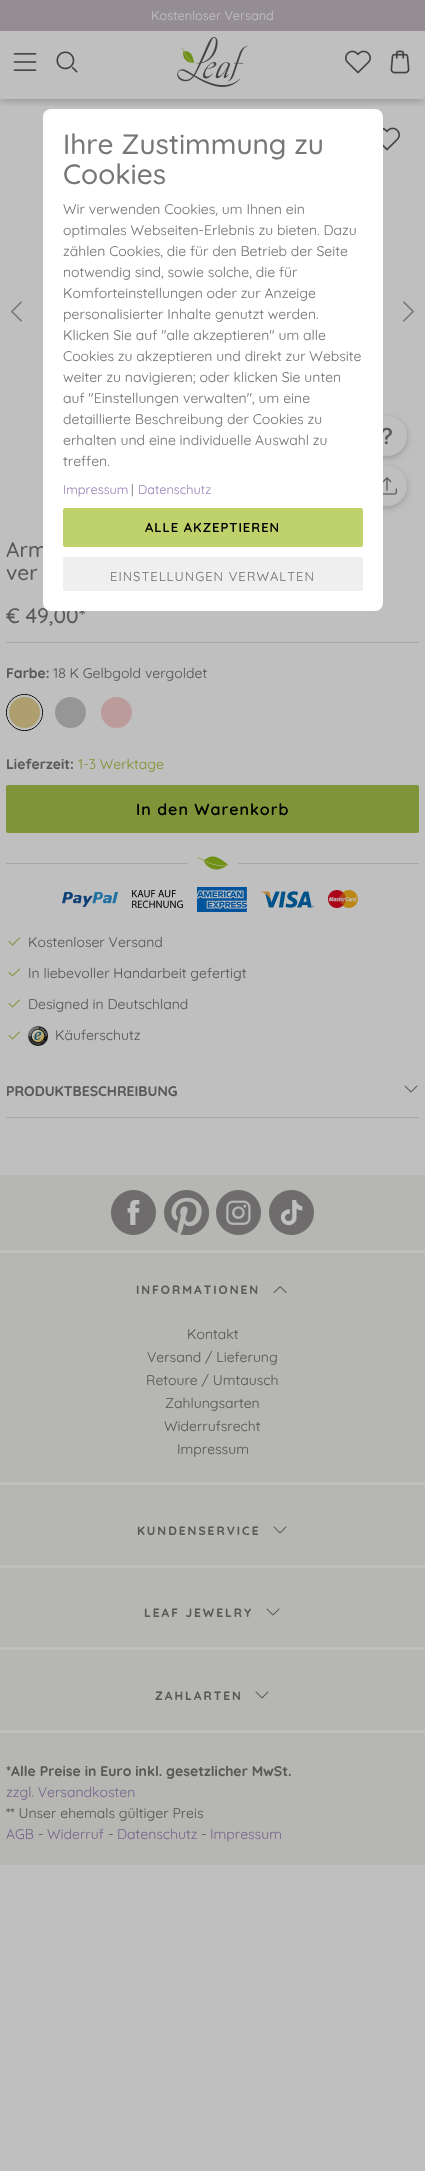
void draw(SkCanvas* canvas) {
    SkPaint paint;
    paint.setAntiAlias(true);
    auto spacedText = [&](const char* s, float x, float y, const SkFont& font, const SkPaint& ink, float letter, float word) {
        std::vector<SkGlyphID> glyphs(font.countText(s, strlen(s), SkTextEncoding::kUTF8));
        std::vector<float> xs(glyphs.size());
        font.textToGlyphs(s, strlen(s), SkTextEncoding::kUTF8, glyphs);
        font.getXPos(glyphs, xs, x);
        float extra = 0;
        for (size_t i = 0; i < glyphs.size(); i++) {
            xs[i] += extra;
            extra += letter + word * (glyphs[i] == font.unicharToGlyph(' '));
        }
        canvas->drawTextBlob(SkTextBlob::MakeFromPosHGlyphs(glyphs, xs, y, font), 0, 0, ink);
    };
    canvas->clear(0xFFBFBFBF);
    canvas->save();
    canvas->clipRect(SkRect::MakeXYWH(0, 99, 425, 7));
    paint.setColor(0x4D000000);
    paint.setMaskFilter(SkMaskFilter::MakeBlur(kNormal_SkBlurStyle, 5));
    canvas->drawRect(SkRect::MakeXYWH(0, 0, 425, 99), paint);
    paint.setMaskFilter(nullptr);
    canvas->restore();
    paint.setColor(0xFF948E94);
    canvas->drawRect(SkRect::MakeXYWH(0, 0, 425, 31), paint);
    SkFont font1(fontMgr->matchFamilyStyle("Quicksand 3", SkFontStyle(300, SkFontStyle::kNormal_Width, SkFontStyle::kUpright_Slant)), 12.75f);
    font1.setSubpixel(true);
    paint.setColor(0xFFBFBFBF);
    canvas->drawString("Kostenloser Versand", 151, 20, font1, paint);
    canvas->drawImageRect(SkImages::DeferredFromEncodedData(SkData::MakeFromFileName("img1.png")), SkRect::MakeXYWH(13, 53, 24, 18), SkSamplingOptions());
    canvas->drawImageRect(SkImages::DeferredFromEncodedData(SkData::MakeFromFileName("img2.png")), SkRect::MakeXYWH(56, 51, 22, 22), SkSamplingOptions());
    canvas->drawImageRect(SkImages::DeferredFromEncodedData(SkData::MakeFromFileName("img3.png")), SkRect::MakeXYWH(177, 37, 71, 50), SkSamplingOptions());
    canvas->drawImageRect(SkImages::DeferredFromEncodedData(SkData::MakeFromFileName("img4.png")), SkRect::MakeXYWH(345, 50, 26, 24), SkSamplingOptions());
    canvas->drawImageRect(SkImages::DeferredFromEncodedData(SkData::MakeFromFileName("img5.png")), SkRect::MakeXYWH(390, 50, 20, 24), SkSamplingOptions());
    paint.setColor(0x33000000);
    paint.setMaskFilter(SkMaskFilter::MakeBlur(kNormal_SkBlurStyle, 3));
    canvas->drawRoundRect(SkRect::MakeXYWH(367, 418, 40, 40), 20, 20, paint);
    paint.setMaskFilter(nullptr);
    paint.setColor(0xFFBFBFBF);
    canvas->drawCircle(387, 436, 20, paint);
    paint.setColor(0x33000000);
    paint.setMaskFilter(SkMaskFilter::MakeBlur(kNormal_SkBlurStyle, 3));
    canvas->drawRoundRect(SkRect::MakeXYWH(367, 468, 40, 40), 20, 20, paint);
    paint.setMaskFilter(nullptr);
    paint.setColor(0xFFBFBFBF);
    canvas->drawCircle(387, 486, 20, paint);
    SkFont font2(fontMgr->matchFamilyStyle("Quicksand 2", SkFontStyle(300, SkFontStyle::kNormal_Width, SkFontStyle::kUpright_Slant)), 21);
    font2.setSubpixel(true);
    paint.setColor(0xFF595959);
    canvas->drawString("Arm", 6, 557, font2, paint);
    canvas->drawString("€ 49,00*", 6, 623, font2, paint);
    paint.setColor(0xFFFFFFFF);
    canvas->drawRoundRect(SkRect::MakeXYWH(43, 109, 340, 502), 8, 8, paint);
    SkFont font3(fontMgr->matchFamilyStyle("Quicksand 2", SkFontStyle(300, SkFontStyle::kNormal_Width, SkFontStyle::kUpright_Slant)), 28);
    font3.setSubpixel(true);
    paint.setColor(0xFF777777);
    canvas->drawString("Ihre Zustimmung zu", 63, 154, font3, paint);
    canvas->drawString("Cookies", 63, 184, font3, paint);
    SkFont font4(fontMgr->matchFamilyStyle("Quicksand 3", SkFontStyle(300, SkFontStyle::kNormal_Width, SkFontStyle::kUpright_Slant)), 14);
    font4.setSubpixel(true);
    canvas->drawString("Wir verwenden Cookies, um Ihnen ein", 63, 214, font4, paint);
    canvas->drawString("optimales Webseiten-Erlebnis zu bieten. Dazu", 63, 235, font4, paint);
    canvas->drawString("zählen Cookies, die für den Betrieb der Seite", 63, 256, font4, paint);
    canvas->drawString("notwendig sind, sowie solche, die für", 63, 277, font4, paint);
    canvas->drawString("Komforteinstellungen oder zur Anzeige", 63, 298, font4, paint);
    canvas->drawString("personalisierter Inhalte genutzt werden.", 63, 319, font4, paint);
    canvas->drawString("Klicken Sie auf \"alle akzeptieren\" um alle", 63, 340, font4, paint);
    canvas->drawString("Cookies zu akzeptieren und direkt zur Website", 63, 361, font4, paint);
    canvas->drawString("weiter zu navigieren; oder klicken Sie unten", 63, 382, font4, paint);
    canvas->drawString("auf \"Einstellungen verwalten\", um eine", 63, 403, font4, paint);
    canvas->drawString("detaillierte Beschreibung der Cookies zu", 63, 424, font4, paint);
    canvas->drawString("erhalten und eine individuelle Auswahl zu", 63, 445, font4, paint);
    canvas->drawString("treffen.", 63, 466, font4, paint);
    paint.setColor(0xFFA18ABD);
    canvas->drawString("Impressum", 63, 494, font1, paint);
    paint.setColor(0xFF777777);
    canvas->drawString("|", 131, 494, font1, paint);
    paint.setColor(0xFFA18ABD);
    canvas->drawString("Datenschutz", 138, 494, font1, paint);
    paint.setColor(0xFFBED16B);
    canvas->drawRoundRect(SkRect::MakeXYWH(63.5f, 508.5f, 299, 38), 1.5f, 1.5f, paint);
    paint.setStyle(SkPaint::kStroke_Style);
    paint.setStrokeWidth(1);
    canvas->drawRoundRect(SkRect::MakeXYWH(63.5f, 508.5f, 299, 38), 1.5f, 1.5f, paint);
    SkFont font5(fontMgr->matchFamilyStyle("Quicksand", SkFontStyle(600, SkFontStyle::kNormal_Width, SkFontStyle::kUpright_Slant)), 13);
    font5.setSubpixel(true);
    paint.setStyle(SkPaint::kFill_Style);
    paint.setColor(0xFF000000);
    spacedText("ALLE AKZEPTIEREN", 145, 532, font5, paint, 1, 0);
    paint.setColor(0xFFEFEFEF);
    canvas->drawRoundRect(SkRect::MakeXYWH(63, 557, 300, 34), 2, 2, paint);
    SkFont font6(fontMgr->matchFamilyStyle("Quicksand 3", SkFontStyle(300, SkFontStyle::kNormal_Width, SkFontStyle::kUpright_Slant)), 13);
    font6.setSubpixel(true);
    paint.setColor(0xFF777777);
    spacedText("EINSTELLUNGEN VERWALTEN", 110, 581, font6, paint, 1, 0);
    canvas->drawImageRect(SkImages::DeferredFromEncodedData(SkData::MakeFromFileName("img6.png")), SkRect::MakeXYWH(383, 127, 17, 24), SkSamplingOptions());
    canvas->drawImageRect(SkImages::DeferredFromEncodedData(SkData::MakeFromFileName("img7.png")), SkRect::MakeXYWH(11, 301, 11, 21), SkSamplingOptions());
    canvas->drawImageRect(SkImages::DeferredFromEncodedData(SkData::MakeFromFileName("img8.png")), SkRect::MakeXYWH(403, 301, 11, 21), SkSamplingOptions());
    canvas->drawImageRect(SkImages::DeferredFromEncodedData(SkData::MakeFromFileName("img9.png")), SkRect::MakeXYWH(383, 427, 9, 18), SkSamplingOptions());
    canvas->drawImageRect(SkImages::DeferredFromEncodedData(SkData::MakeFromFileName("img10.png")), SkRect::MakeXYWH(383, 477, 14, 18), SkSamplingOptions());
    paint.setColor(0xFF595959);
    canvas->drawString("ver", 6, 580, font2, paint);
    paint.setColor(0xFFA6A6A6);
    canvas->drawRect(SkRect::MakeXYWH(6, 642, 413, 1), paint);
    SkFont font7(fontMgr->matchFamilyStyle("Quicksand", SkFontStyle(300, SkFontStyle::kNormal_Width, SkFontStyle::kUpright_Slant)), 14);
    font7.setSubpixel(true);
    paint.setColor(0xFF595959);
    canvas->drawString("Farbe:", 6, 678, font7, paint);
    canvas->drawString("18 K Gelbgold vergoldet", 53, 678, font4, paint);
    paint.setStyle(SkPaint::kStroke_Style);
    paint.setColor(0xFF000000);
    canvas->drawCircle(24.5f, 712.5f, 18, paint);
    paint.setStyle(SkPaint::kFill_Style);
    paint.setColor(0xFFAF9F6F);
    canvas->drawCircle(24.5f, 712.5f, 16.5f, paint);
    paint.setStyle(SkPaint::kStroke_Style);
    paint.setStrokeWidth(2);
    paint.setColor(0xFFBFBFBF);
    canvas->drawCircle(24.5f, 712.5f, 16.5f, paint);
    paint.setStyle(SkPaint::kFill_Style);
    paint.setColor(0xFF969696);
    canvas->drawCircle(70.5f, 712.5f, 16.5f, paint);
    paint.setStyle(SkPaint::kStroke_Style);
    paint.setColor(0xFFBFBFBF);
    canvas->drawCircle(70.5f, 712.5f, 16.5f, paint);
    paint.setStyle(SkPaint::kFill_Style);
    paint.setColor(0xFFBB9C9A);
    canvas->drawCircle(116.5f, 712.5f, 16.5f, paint);
    paint.setStyle(SkPaint::kStroke_Style);
    paint.setColor(0xFFBFBFBF);
    canvas->drawCircle(116.5f, 712.5f, 16.5f, paint);
    paint.setStyle(SkPaint::kFill_Style);
    paint.setColor(0xFF595959);
    canvas->drawString("Lieferzeit:", 6, 769, font7, paint);
    paint.setColor(0xFF809539);
    canvas->drawString("1-3 Werktage", 78, 769, font4, paint);
    canvas->drawRoundRect(SkRect::MakeXYWH(6, 785, 413, 48), 2, 2, paint);
    SkFont font8(fontMgr->matchFamilyStyle("Quicksand", SkFontStyle(600, SkFontStyle::kNormal_Width, SkFontStyle::kUpright_Slant)), 16);
    font8.setSubpixel(true);
    paint.setColor(0xFF000000);
    spacedText("In den Warenkorb", 136, 815, font8, paint, 1, 0);
    paint.setColor(0xFFA6A6A6);
    canvas->drawRect(SkRect::MakeXYWH(6, 863, 413, 1), paint);
    paint.setColor(0xFFBFBFBF);
    canvas->drawRect(SkRect::MakeXYWH(188, 863, 50, 1), paint);
    canvas->drawImageRect(SkImages::DeferredFromEncodedData(SkData::MakeFromFileName("img11.png")), SkRect::MakeXYWH(198, 856, 30, 14), SkSamplingOptions());
    canvas->drawImageRect(SkImages::DeferredFromEncodedData(SkData::MakeFromFileName("img12.png")), SkRect::MakeXYWH(62, 892, 56, 15), SkSamplingOptions());
    canvas->drawImageRect(SkImages::DeferredFromEncodedData(SkData::MakeFromFileName("img13.png")), SkRect::MakeXYWH(132, 890, 51, 18), SkSamplingOptions());
    canvas->drawImageRect(SkImages::DeferredFromEncodedData(SkData::MakeFromFileName("img14.png")), SkRect::MakeXYWH(197, 887, 50, 25), SkSamplingOptions());
    canvas->drawImageRect(SkImages::DeferredFromEncodedData(SkData::MakeFromFileName("img15.png")), SkRect::MakeXYWH(261, 891, 53, 17), SkSamplingOptions());
    canvas->drawImageRect(SkImages::DeferredFromEncodedData(SkData::MakeFromFileName("img16.png")), SkRect::MakeXYWH(328, 890, 30, 18), SkSamplingOptions());
    canvas->drawImageRect(SkImages::DeferredFromEncodedData(SkData::MakeFromFileName("img17.png")), SkRect::MakeXYWH(8, 937, 12, 9), SkSamplingOptions());
    paint.setColor(0xFF595959);
    canvas->drawString("Kostenloser Versand", 28, 947, font4, paint);
    canvas->drawImageRect(SkImages::DeferredFromEncodedData(SkData::MakeFromFileName("img17.png")), SkRect::MakeXYWH(8, 968, 12, 9), SkSamplingOptions());
    canvas->drawString("In liebevoller Handarbeit gefertigt", 28, 978, font4, paint);
    canvas->drawImageRect(SkImages::DeferredFromEncodedData(SkData::MakeFromFileName("img17.png")), SkRect::MakeXYWH(8, 999, 12, 9), SkSamplingOptions());
    canvas->drawString("Designed in Deutschland", 28, 1009, font4, paint);
    canvas->drawImageRect(SkImages::DeferredFromEncodedData(SkData::MakeFromFileName("img17.png")), SkRect::MakeXYWH(8, 1031, 12, 9), SkSamplingOptions());
    canvas->drawImageRect(SkImages::DeferredFromEncodedData(SkData::MakeFromFileName("img18.png")), SkRect::MakeXYWH(28, 1026, 20, 20), SkSamplingOptions());
    canvas->drawString("Käuferschutz", 55, 1040, font4, paint);
    paint.setColor(0xFFA6A6A6);
    canvas->drawRect(SkRect::MakeXYWH(6, 1117, 413, 1), paint);
    paint.setColor(0xFF595959);
    canvas->drawString("PRODUKTBESCHREIBUNG", 6, 1096, font7, paint);
    canvas->drawImageRect(SkImages::DeferredFromEncodedData(SkData::MakeFromFileName("img19.png")), SkRect::MakeXYWH(404, 1085, 14, 8), SkSamplingOptions());
    paint.setColor(0xFFB6B6B3);
    canvas->drawRect(SkRect::MakeXYWH(0, 1175, 425, 75), paint);
    canvas->drawImageRect(SkImages::DeferredFromEncodedData(SkData::MakeFromFileName("img20.png")), SkRect::MakeXYWH(111, 1190, 45, 45), SkSamplingOptions());
    canvas->drawImageRect(SkImages::DeferredFromEncodedData(SkData::MakeFromFileName("img21.png")), SkRect::MakeXYWH(164, 1190, 45, 45), SkSamplingOptions());
    canvas->drawImageRect(SkImages::DeferredFromEncodedData(SkData::MakeFromFileName("img22.png")), SkRect::MakeXYWH(216, 1190, 45, 45), SkSamplingOptions());
    canvas->drawImageRect(SkImages::DeferredFromEncodedData(SkData::MakeFromFileName("img23.png")), SkRect::MakeXYWH(269, 1190, 45, 45), SkSamplingOptions());
    canvas->drawRect(SkRect::MakeXYWH(0, 1253, 425, 612), paint);
    paint.setColor(0xFFBFBFBF);
    canvas->drawRect(SkRect::MakeXYWH(0, 1482, 425, 3), paint);
    SkFont font9(fontMgr->matchFamilyStyle("Quicksand", SkFontStyle(300, SkFontStyle::kNormal_Width, SkFontStyle::kUpright_Slant)), 12);
    font9.setSubpixel(true);
    paint.setColor(0xFF595959);
    spacedText("INFORMATIONEN", 136, 1294, font9, paint, 2, 0);
    canvas->drawImageRect(SkImages::DeferredFromEncodedData(SkData::MakeFromFileName("img24.png")), SkRect::MakeXYWH(273, 1286, 14, 7), SkSamplingOptions());
    canvas->drawString("Kontakt", 187, 1339, font4, paint);
    canvas->drawString("Versand / Lieferung", 147, 1362, font4, paint);
    canvas->drawString("Retoure / Umtausch", 146, 1385, font4, paint);
    canvas->drawString("Zahlungsarten", 165, 1408, font4, paint);
    canvas->drawString("Widerrufsrecht", 164, 1431, font4, paint);
    canvas->drawString("Impressum", 177, 1454, font4, paint);
    paint.setColor(0xFFBFBFBF);
    canvas->drawRect(SkRect::MakeXYWH(0, 1565, 425, 3), paint);
    paint.setColor(0xFF595959);
    spacedText("KUNDENSERVICE", 137, 1535, font9, paint, 2, 0);
    canvas->drawImageRect(SkImages::DeferredFromEncodedData(SkData::MakeFromFileName("img25.png")), SkRect::MakeXYWH(273, 1526, 14, 8), SkSamplingOptions());
    paint.setColor(0xFFBFBFBF);
    canvas->drawRect(SkRect::MakeXYWH(0, 1647, 425, 3), paint);
    paint.setColor(0xFF595959);
    spacedText("LEAF JEWELRY", 144, 1617, font9, paint, 2, 0);
    canvas->drawImageRect(SkImages::DeferredFromEncodedData(SkData::MakeFromFileName("img25.png")), SkRect::MakeXYWH(266, 1608, 14, 8), SkSamplingOptions());
    paint.setColor(0xFFBFBFBF);
    canvas->drawRect(SkRect::MakeXYWH(0, 1730, 425, 3), paint);
    paint.setColor(0xFF595959);
    spacedText("ZAHLARTEN", 155, 1700, font9, paint, 2, 0);
    canvas->drawImageRect(SkImages::DeferredFromEncodedData(SkData::MakeFromFileName("img25.png")), SkRect::MakeXYWH(255, 1691, 14, 8), SkSamplingOptions());
    canvas->drawString("*Alle Preise in Euro inkl. gesetzlicher MwSt.", 6, 1776, font7, paint);
    paint.setColor(0xFF79688E);
    canvas->drawString("zzgl. Versandkosten", 6, 1797, font4, paint);
    paint.setColor(0xFF595959);
    canvas->drawString("** Unser ehemals gültiger Preis", 6, 1818, font4, paint);
    paint.setColor(0xFF79688E);
    canvas->drawString("AGB", 6, 1839, font4, paint);
    paint.setColor(0xFF595959);
    canvas->drawString("-", 38, 1839, font4, paint);
    paint.setColor(0xFF79688E);
    canvas->drawString("Widerruf", 47, 1839, font4, paint);
    paint.setColor(0xFF595959);
    canvas->drawString("-", 108, 1839, font4, paint);
    paint.setColor(0xFF79688E);
    canvas->drawString("Datenschutz", 117, 1839, font4, paint);
    paint.setColor(0xFF595959);
    canvas->drawString("-", 201, 1839, font4, paint);
    paint.setColor(0xFF79688E);
    canvas->drawString("Impressum", 210, 1839, font4, paint);
}
